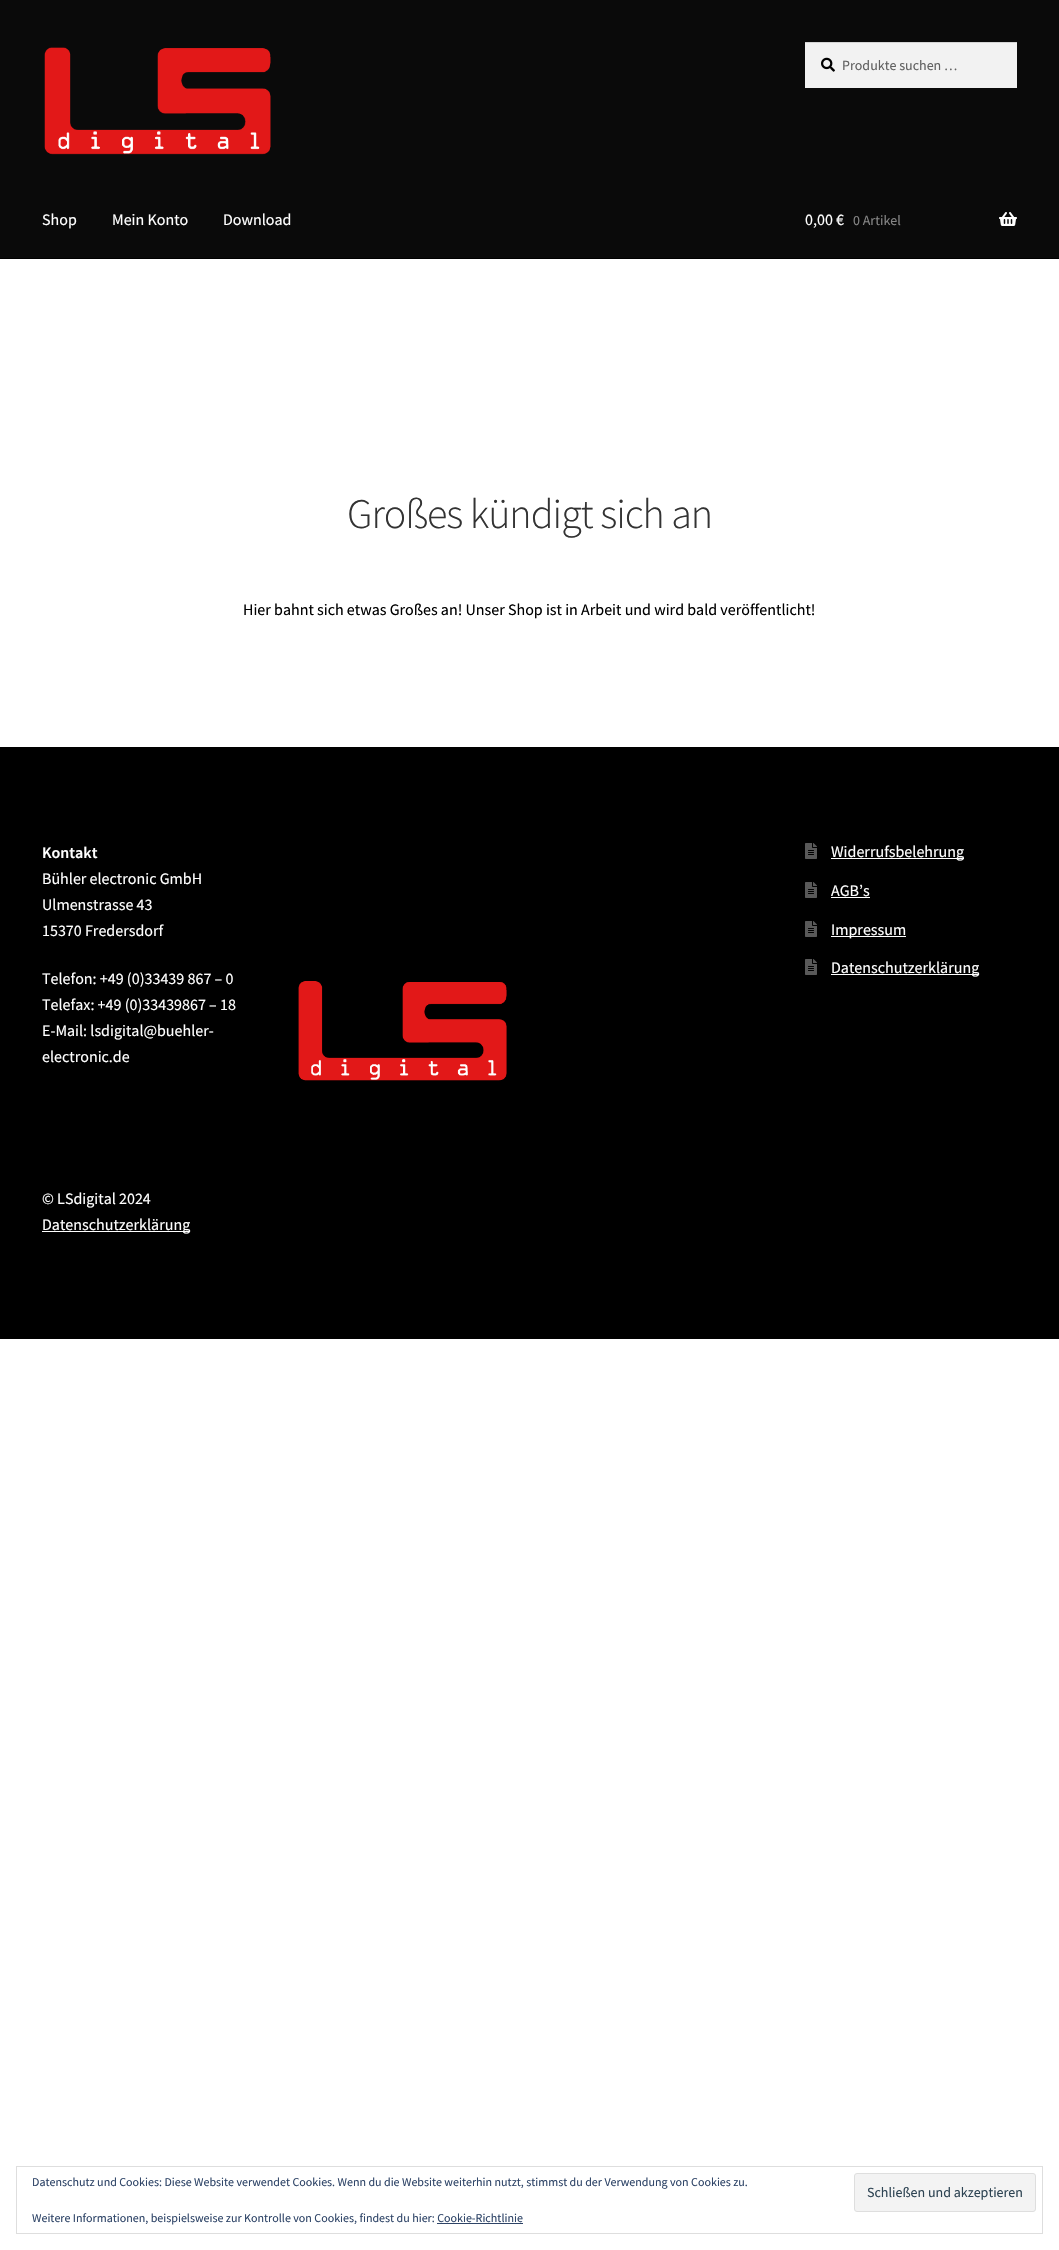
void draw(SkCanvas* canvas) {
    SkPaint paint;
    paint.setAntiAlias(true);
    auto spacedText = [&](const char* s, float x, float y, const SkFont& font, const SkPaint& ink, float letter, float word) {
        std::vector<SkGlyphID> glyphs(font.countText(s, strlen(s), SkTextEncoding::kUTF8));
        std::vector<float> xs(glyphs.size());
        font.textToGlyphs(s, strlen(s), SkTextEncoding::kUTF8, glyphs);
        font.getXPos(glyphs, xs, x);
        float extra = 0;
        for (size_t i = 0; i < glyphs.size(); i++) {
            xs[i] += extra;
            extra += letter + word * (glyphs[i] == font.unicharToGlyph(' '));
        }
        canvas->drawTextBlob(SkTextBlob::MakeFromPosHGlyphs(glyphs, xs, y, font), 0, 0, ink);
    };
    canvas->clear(0xFFFFFFFF);
    paint.setColor(0xFF0A0A0A);
    canvas->drawRect(SkRect::MakeXYWH(0, 0, 1059, 258), paint);
    paint.setColor(0xFF000000);
    canvas->drawRect(SkRect::MakeXYWH(0, 258, 1059, 1), paint);
    canvas->drawImageRect(SkImages::DeferredFromEncodedData(SkData::MakeFromFileName("img1.png")), SkRect::MakeXYWH(44, 47, 227, 108), SkSamplingOptions());
    paint.setColor(0xFFF2F2F2);
    canvas->drawRect(SkRect::MakeXYWH(805, 43, 212, 45), paint);
    canvas->drawImageRect(SkImages::DeferredFromEncodedData(SkData::MakeFromFileName("img2.png")), SkRect::MakeXYWH(821, 57, 14, 15), SkSamplingOptions());
    paint.setColor(0xFFD4D4D4);
    canvas->drawRect(SkRect::MakeXYWH(805, 42, 212, 1), paint);
    SkFont font1(fontMgr->matchFamilyStyle("Source Sans Pro", SkFontStyle::Normal()), 14);
    font1.setSubpixel(true);
    paint.setColor(0xFF616161);
    canvas->drawString("Produkte suchen …", 842, 70, font1, paint);
    SkFont font2(fontMgr->matchFamilyStyle("Source Sans Pro", SkFontStyle::Normal()), 16);
    font2.setSubpixel(true);
    paint.setColor(0xFFFFFFFF);
    canvas->drawString("Shop", 42, 225, font2, paint);
    canvas->drawString("Mein Konto", 112, 225, font2, paint);
    canvas->drawString("Download", 223, 225, font2, paint);
    canvas->drawString("0,00 €", 805, 225, font2, paint);
    paint.setColor(0xFF858585);
    canvas->drawString("0 Artikel", 853, 225, font1, paint);
    canvas->drawImageRect(SkImages::DeferredFromEncodedData(SkData::MakeFromFileName("img3.png")), SkRect::MakeXYWH(999, 212, 18, 14), SkSamplingOptions());
    SkFont font3(fontMgr->matchFamilyStyle("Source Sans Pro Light", SkFontStyle(300, SkFontStyle::kNormal_Width, SkFontStyle::kUpright_Slant)), 42);
    font3.setSubpixel(true);
    paint.setColor(0xFF333333);
    spacedText("Großes kündigt sich an", 347, 528, font3, paint, -1, 0);
    paint.setColor(0xFF000000);
    canvas->drawString("Hier bahnt sich etwas Großes an! Unser Shop ist in Arbeit und wird bald veröffentlicht!", 243, 615, font2, paint);
    canvas->drawRect(SkRect::MakeXYWH(0, 747, 1059, 592), paint);
    SkFont font4(fontMgr->matchFamilyStyle("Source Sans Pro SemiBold", SkFontStyle(600, SkFontStyle::kNormal_Width, SkFontStyle::kUpright_Slant)), 16);
    font4.setSubpixel(true);
    paint.setColor(0xFFFFFFFF);
    canvas->drawString("Kontakt", 42, 858, font4, paint);
    canvas->drawString("Bühler electronic GmbH", 42, 884, font2, paint);
    canvas->drawString("Ulmenstrasse 43", 42, 910, font2, paint);
    canvas->drawString("15370 Fredersdorf", 42, 936, font2, paint);
    canvas->drawString("Telefon: +49 (0)33439 867 – 0", 42, 984, font2, paint);
    canvas->drawString("Telefax: +49 (0)33439867 – 18", 42, 1010, font2, paint);
    canvas->drawString("E-Mail: lsdigital@buehler-", 42, 1036, font2, paint);
    canvas->drawString("electronic.de", 42, 1062, font2, paint);
    canvas->drawImageRect(SkImages::DeferredFromEncodedData(SkData::MakeFromFileName("img4.png")), SkRect::MakeXYWH(298, 981, 209, 100), SkSamplingOptions());
    canvas->drawImageRect(SkImages::DeferredFromEncodedData(SkData::MakeFromFileName("img5.png")), SkRect::MakeXYWH(805, 843, 12, 16), SkSamplingOptions());
    canvas->drawRect(SkRect::MakeXYWH(831, 858, 133, 1), paint);
    canvas->drawString("Widerrufsbelehrung", 831, 857, font2, paint);
    canvas->drawImageRect(SkImages::DeferredFromEncodedData(SkData::MakeFromFileName("img5.png")), SkRect::MakeXYWH(805, 882, 12, 16), SkSamplingOptions());
    canvas->drawString("AGB’s", 831, 896, font2, paint);
    canvas->drawRect(SkRect::MakeXYWH(831, 897, 39, 1), paint);
    canvas->drawImageRect(SkImages::DeferredFromEncodedData(SkData::MakeFromFileName("img5.png")), SkRect::MakeXYWH(805, 921, 12, 16), SkSamplingOptions());
    canvas->drawRect(SkRect::MakeXYWH(831, 936, 75, 1), paint);
    canvas->drawString("Impressum", 831, 935, font2, paint);
    canvas->drawImageRect(SkImages::DeferredFromEncodedData(SkData::MakeFromFileName("img5.png")), SkRect::MakeXYWH(805, 959, 12, 16), SkSamplingOptions());
    canvas->drawRect(SkRect::MakeXYWH(831, 974, 148, 1), paint);
    canvas->drawString("Datenschutzerklärung", 831, 973, font2, paint);
    canvas->drawString("© LSdigital 2024", 42, 1204, font2, paint);
    canvas->drawRect(SkRect::MakeXYWH(42, 1231, 148, 1), paint);
    canvas->drawString("Datenschutzerklärung", 42, 1230, font2, paint);
    paint.setStyle(SkPaint::kStroke_Style);
    paint.setStrokeWidth(1);
    paint.setColor(0xFFDEDEDE);
    canvas->drawRect(SkRect::MakeXYWH(16.5f, 2166.5f, 1026, 67), paint);
    SkFont font5(fontMgr->matchFamilyStyle("Source Sans Pro", SkFontStyle::Normal()), 12);
    font5.setSubpixel(true);
    paint.setStyle(SkPaint::kFill_Style);
    paint.setColor(0xFF2E4467);
    canvas->drawString("Datenschutz und Cookies: Diese Website verwendet Cookies. Wenn du die Website weiterhin nutzt, stimmst du der Verwendung von Cookies zu.", 32, 2186, font5, paint);
    paint.setColor(0xFFF3F3F3);
    canvas->drawRoundRect(SkRect::MakeXYWH(854.5f, 2173.5f, 181, 38), 2.5f, 2.5f, paint);
    paint.setStyle(SkPaint::kStroke_Style);
    paint.setColor(0xFFDEDEDE);
    canvas->drawRoundRect(SkRect::MakeXYWH(854.5f, 2173.5f, 181, 38), 2.5f, 2.5f, paint);
    paint.setStyle(SkPaint::kFill_Style);
    paint.setColor(0xFF2E4453);
    canvas->drawString("Schließen und akzeptieren", 867, 2197, font1, paint);
    paint.setColor(0xFF2E4467);
    canvas->drawString("Weitere Informationen, beispielsweise zur Kontrolle von Cookies, findest du hier: Cookie-Richtlinie", 32, 2222, font5, paint);
    canvas->drawRect(SkRect::MakeXYWH(437, 2223, 86, 1), paint);
}
